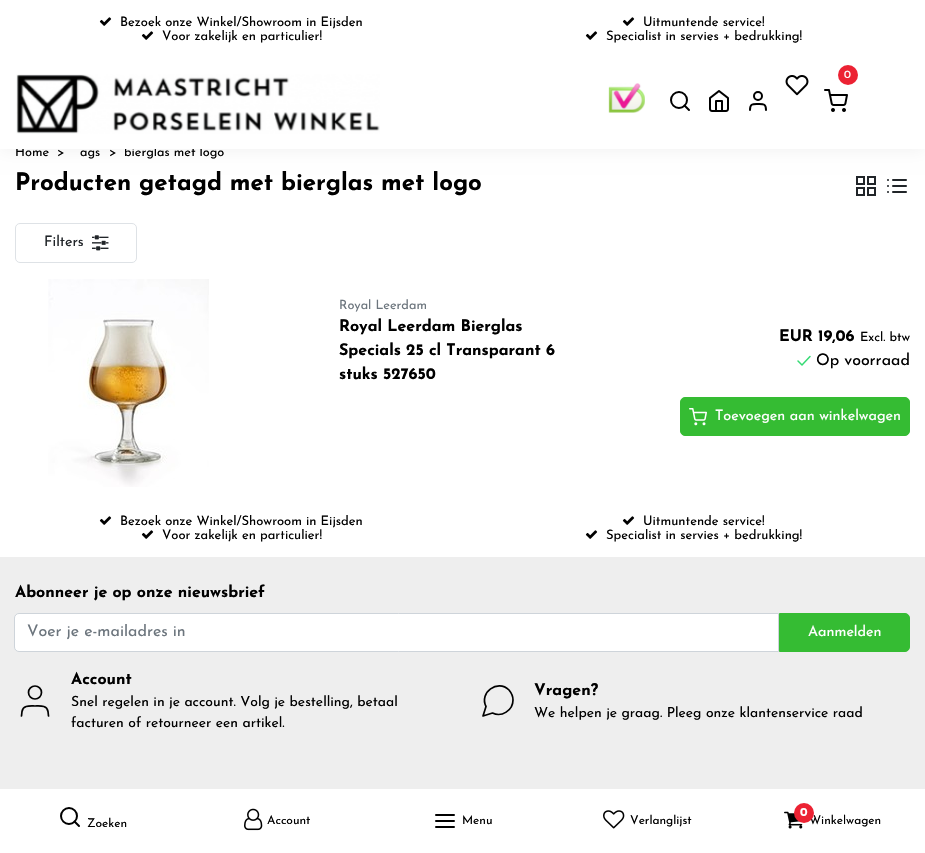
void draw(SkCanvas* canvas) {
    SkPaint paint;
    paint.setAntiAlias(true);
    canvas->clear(0xFFFFFFFF);
    paint.setColor(0x0D000000);
    paint.setMaskFilter(SkMaskFilter::MakeBlur(kNormal_SkBlurStyle, 8));
    canvas->drawRect(SkRect::MakeXYWH(0, 2, 925, 149), paint);
    paint.setMaskFilter(nullptr);
    SkFont font1(fontMgr->matchFamilyStyle("Josefin Sans", SkFontStyle::Normal()), 12.75f);
    font1.setSubpixel(true);
    paint.setColor(0xFF000000);
    canvas->drawString("Home", 15, 156, font1, paint);
    canvas->drawString("bierglas met logo", 124, 156, font1, paint);
    paint.setColor(0xFFFFFFFF);
    canvas->drawRect(SkRect::MakeXYWH(0, 0, 925, 149), paint);
    canvas->drawImageRect(SkImages::DeferredFromEncodedData(SkData::MakeFromFileName("img1.png")), SkRect::MakeXYWH(99, 17, 13, 9), SkSamplingOptions());
    SkFont font2(fontMgr->matchFamilyStyle("Josefin Sans", SkFontStyle::Normal()), 13);
    font2.setSubpixel(true);
    paint.setColor(0xFF000000);
    canvas->drawString("Bezoek onze Winkel/Showroom in Eijsden", 120, 26, font2, paint);
    canvas->drawImageRect(SkImages::DeferredFromEncodedData(SkData::MakeFromFileName("img1.png")), SkRect::MakeXYWH(622, 17, 13, 9), SkSamplingOptions());
    canvas->drawString("Uitmuntende service!", 643, 26, font2, paint);
    canvas->drawImageRect(SkImages::DeferredFromEncodedData(SkData::MakeFromFileName("img1.png")), SkRect::MakeXYWH(141, 31, 13, 9), SkSamplingOptions());
    canvas->drawString("Voor zakelijk en particulier!", 162, 40, font2, paint);
    canvas->drawImageRect(SkImages::DeferredFromEncodedData(SkData::MakeFromFileName("img1.png")), SkRect::MakeXYWH(585, 31, 13, 9), SkSamplingOptions());
    canvas->drawString("Specialist in servies + bedrukking!", 606, 40, font2, paint);
    canvas->drawImageRect(SkImages::DeferredFromEncodedData(SkData::MakeFromFileName("img2.png")), SkRect::MakeXYWH(16, 74, 364, 60), SkSamplingOptions());
    paint.setColor(0xFFEC2233);
    canvas->drawCircle(848, 75, 10, paint);
    SkFont font3(fontMgr->matchFamilyStyle("Josefin Sans", SkFontStyle::Normal()), 11);
    font3.setSubpixel(true);
    paint.setColor(0xFFFFFFFF);
    canvas->drawString("0", 844, 78, font3, paint);
    canvas->drawImageRect(SkImages::DeferredFromEncodedData(SkData::MakeFromFileName("img3.png")), SkRect::MakeXYWH(824, 89, 24, 23), SkSamplingOptions());
    canvas->drawImageRect(SkImages::DeferredFromEncodedData(SkData::MakeFromFileName("img4.png")), SkRect::MakeXYWH(608, 83, 37, 30), SkSamplingOptions());
    paint.setStyle(SkPaint::kStroke_Style);
    paint.setStrokeWidth(2);
    paint.setColor(0xFF000000);
    canvas->drawCircle(679, 100, 8, paint);
    paint.setStrokeCap(SkPaint::kRound_Cap);
    paint.setStrokeJoin(SkPaint::kRound_Join);
    canvas->drawPath(SkPathBuilder().moveTo(689, 110).lineTo(684.5f, 105.5f).detach(), paint);
    canvas->drawImageRect(SkImages::DeferredFromEncodedData(SkData::MakeFromFileName("img5.png")), SkRect::MakeXYWH(709, 90, 20, 22), SkSamplingOptions());
    canvas->drawPath(SkPathBuilder().moveTo(766, 110).cubicTo(766, 103.5f, 763.5f, 104, 758, 104).cubicTo(752.5f, 104, 750, 103.5f, 750, 110).detach(), paint);
    paint.setStrokeCap(SkPaint::kButt_Cap);
    paint.setStrokeJoin(SkPaint::kMiter_Join);
    canvas->drawCircle(758, 96, 4, paint);
    canvas->drawImageRect(SkImages::DeferredFromEncodedData(SkData::MakeFromFileName("img6.png")), SkRect::MakeXYWH(785, 75, 24, 21), SkSamplingOptions());
    paint.setStyle(SkPaint::kFill_Style);
    canvas->drawString(">", 57, 156, font1, paint);
    canvas->drawString("ags", 80, 156, font1, paint);
    canvas->drawString(">", 109, 156, font1, paint);
    SkFont font4(fontMgr->matchFamilyStyle("Josefin Sans", SkFontStyle::Bold()), 24);
    font4.setSubpixel(true);
    canvas->drawString("Producten getagd met bierglas met logo", 15, 190, font4, paint);
    paint.setStyle(SkPaint::kStroke_Style);
    paint.setColor(0xFF212529);
    canvas->drawRect(SkRect::MakeXYWH(857, 177, 7, 7), paint);
    canvas->drawRect(SkRect::MakeXYWH(868, 177, 7, 7), paint);
    canvas->drawRect(SkRect::MakeXYWH(868, 188, 7, 7), paint);
    canvas->drawRect(SkRect::MakeXYWH(857, 188, 7, 7), paint);
    canvas->drawImageRect(SkImages::DeferredFromEncodedData(SkData::MakeFromFileName("img7.png")), SkRect::MakeXYWH(887, 179, 20, 14), SkSamplingOptions());
    paint.setStrokeWidth(1);
    paint.setColor(0xFFDEE2E6);
    canvas->drawRoundRect(SkRect::MakeXYWH(15.5f, 223.5f, 121, 39), 4.5f, 4.5f, paint);
    SkFont font5(fontMgr->matchFamilyStyle("Josefin Sans", SkFontStyle::Normal()), 14.4f);
    font5.setSubpixel(true);
    paint.setStyle(SkPaint::kFill_Style);
    paint.setColor(0xFF212529);
    canvas->drawString("Filters", 44, 246, font5, paint);
    canvas->drawImageRect(SkImages::DeferredFromEncodedData(SkData::MakeFromFileName("img8.png")), SkRect::MakeXYWH(92, 235, 17, 16), SkSamplingOptions());
    canvas->drawImageRect(SkImages::DeferredFromEncodedData(SkData::MakeFromFileName("img9.png")), SkRect::MakeXYWH(48, 279, 161, 208), SkSamplingOptions());
    paint.setColor(0xFF6C757D);
    canvas->drawString("Royal Leerdam", 339, 309, font1, paint);
    SkFont font6(fontMgr->matchFamilyStyle("Josefin Sans", SkFontStyle::Bold()), 16);
    font6.setSubpixel(true);
    paint.setColor(0xFF000000);
    canvas->drawString("Royal Leerdam Bierglas", 339, 331, font6, paint);
    canvas->drawString("Specials 25 cl Transparant 6", 339, 355, font6, paint);
    canvas->drawString("stuks 527650", 339, 379, font6, paint);
    canvas->drawString("EUR 19,06", 779, 341, font6, paint);
    canvas->drawString("Excl. btw", 860, 341, font1, paint);
    paint.setStyle(SkPaint::kStroke_Style);
    paint.setStrokeWidth(1.5f);
    paint.setStrokeCap(SkPaint::kRound_Cap);
    paint.setStrokeJoin(SkPaint::kRound_Join);
    paint.setColor(0xFF35DB74);
    canvas->drawPath(SkPathBuilder().moveTo(810, 356.5f).lineTo(802, 365).lineTo(798, 361).detach(), paint);
    SkFont font7(fontMgr->matchFamilyStyle("Josefin Sans", SkFontStyle::Normal()), 16);
    font7.setSubpixel(true);
    paint.setStyle(SkPaint::kFill_Style);
    paint.setColor(0xFF000000);
    canvas->drawString("Op voorraad", 816, 365, font7, paint);
    paint.setColor(0xFF35BC33);
    canvas->drawRoundRect(SkRect::MakeXYWH(680.5f, 397.5f, 229, 38), 4.5f, 4.5f, paint);
    paint.setStyle(SkPaint::kStroke_Style);
    paint.setStrokeWidth(1);
    paint.setStrokeCap(SkPaint::kButt_Cap);
    paint.setStrokeJoin(SkPaint::kMiter_Join);
    canvas->drawRoundRect(SkRect::MakeXYWH(680.5f, 397.5f, 229, 38), 4.5f, 4.5f, paint);
    canvas->drawImageRect(SkImages::DeferredFromEncodedData(SkData::MakeFromFileName("img10.png")), SkRect::MakeXYWH(689, 408, 18, 18), SkSamplingOptions());
    paint.setStyle(SkPaint::kFill_Style);
    paint.setColor(0xFFFFFFFF);
    canvas->drawString("Toevoegen aan winkelwagen", 715, 420, font5, paint);
    canvas->drawImageRect(SkImages::DeferredFromEncodedData(SkData::MakeFromFileName("img1.png")), SkRect::MakeXYWH(99, 516, 13, 9), SkSamplingOptions());
    paint.setColor(0xFF000000);
    canvas->drawString("Bezoek onze Winkel/Showroom in Eijsden", 120, 525, font2, paint);
    canvas->drawImageRect(SkImages::DeferredFromEncodedData(SkData::MakeFromFileName("img1.png")), SkRect::MakeXYWH(622, 516, 13, 9), SkSamplingOptions());
    canvas->drawString("Uitmuntende service!", 643, 525, font2, paint);
    canvas->drawImageRect(SkImages::DeferredFromEncodedData(SkData::MakeFromFileName("img1.png")), SkRect::MakeXYWH(141, 530, 13, 9), SkSamplingOptions());
    canvas->drawString("Voor zakelijk en particulier!", 162, 539, font2, paint);
    canvas->drawImageRect(SkImages::DeferredFromEncodedData(SkData::MakeFromFileName("img1.png")), SkRect::MakeXYWH(585, 530, 13, 9), SkSamplingOptions());
    canvas->drawString("Specialist in servies + bedrukking!", 606, 539, font2, paint);
    paint.setColor(0xFFEEEEEE);
    canvas->drawRect(SkRect::MakeXYWH(0, 557, 925, 232), paint);
    paint.setColor(0xFF000000);
    canvas->drawString("Abonneer je op onze nieuwsbrief", 15, 597, font6, paint);
    paint.setColor(0xFFFFFFFF);
    canvas->drawPath(SkPathBuilder().moveTo(19, 613.5f).lineTo(778.5f, 613.5f).lineTo(778.5f, 651.5f).lineTo(19, 651.5f).cubicTo(16.5f, 651.5f, 14.5f, 649.5f, 14.5f, 647).lineTo(14.5f, 618).cubicTo(14.5f, 615.5f, 16.5f, 613.5f, 19, 613.5f).close().detach(), paint);
    paint.setStyle(SkPaint::kStroke_Style);
    paint.setColor(0xFFCED4DA);
    canvas->drawPath(SkPathBuilder().moveTo(19, 613.5f).lineTo(778.5f, 613.5f).lineTo(778.5f, 651.5f).lineTo(19, 651.5f).cubicTo(16.5f, 651.5f, 14.5f, 649.5f, 14.5f, 647).lineTo(14.5f, 618).cubicTo(14.5f, 615.5f, 16.5f, 613.5f, 19, 613.5f).close().detach(), paint);
    canvas->save();
    canvas->clipRect(SkRect::MakeXYWH(27, 624, 739, 16));
    paint.setStyle(SkPaint::kFill_Style);
    paint.setColor(0xFF6C757D);
    canvas->drawString("Voer je e-mailadres in", 27, 636, font7, paint);
    canvas->restore();
    paint.setColor(0xFF35BC33);
    canvas->drawPath(SkPathBuilder().moveTo(779.5f, 613.5f).lineTo(905, 613.5f).cubicTo(907.5f, 613.5f, 909.5f, 615.5f, 909.5f, 618).lineTo(909.5f, 647).cubicTo(909.5f, 649.5f, 907.5f, 651.5f, 905, 651.5f).lineTo(779.5f, 651.5f).close().detach(), paint);
    paint.setStyle(SkPaint::kStroke_Style);
    canvas->drawPath(SkPathBuilder().moveTo(779.5f, 613.5f).lineTo(905, 613.5f).cubicTo(907.5f, 613.5f, 909.5f, 615.5f, 909.5f, 618).lineTo(909.5f, 647).cubicTo(909.5f, 649.5f, 907.5f, 651.5f, 905, 651.5f).lineTo(779.5f, 651.5f).close().detach(), paint);
    paint.setStyle(SkPaint::kFill_Style);
    paint.setColor(0xFFFFFFFF);
    canvas->drawString("Aanmelden", 808, 636, font5, paint);
    paint.setStyle(SkPaint::kStroke_Style);
    paint.setStrokeWidth(1.7f);
    paint.setColor(0xFF000000);
    canvas->drawCircle(35, 692.5f, 6.5f, paint);
    paint.setStrokeCap(SkPaint::kRound_Cap);
    paint.setStrokeJoin(SkPaint::kRound_Join);
    canvas->drawPath(SkPathBuilder().moveTo(48.5f, 716).lineTo(48, 711.5f).cubicTo(47, 705, 40, 706, 35, 706).cubicTo(30, 706, 23, 705, 22, 711.5f).lineTo(21.5f, 716).detach(), paint);
    paint.setStyle(SkPaint::kFill_Style);
    canvas->drawString("Account", 71, 684, font6, paint);
    SkFont font8(fontMgr->matchFamilyStyle("Josefin Sans", SkFontStyle::Normal()), 14);
    font8.setSubpixel(true);
    canvas->drawString("Snel regelen in je account. Volg je bestelling, betaal", 71, 706, font8, paint);
    canvas->drawString("facturen of retourneer een artikel.", 71, 727, font8, paint);
    paint.setStyle(SkPaint::kStroke_Style);
    canvas->drawPath(SkPathBuilder().moveTo(513, 700).cubicTo(513, 710.5f, 501.5f, 717.5f, 492.5f, 713).lineTo(483, 716).lineTo(486, 706.5f).cubicTo(479, 692.5f, 497.5f, 679, 509, 690).cubicTo(511.5f, 693, 513, 696.5f, 513, 700).close().detach(), paint);
    paint.setStyle(SkPaint::kFill_Style);
    canvas->drawString("Vragen?", 534, 695, font6, paint);
    canvas->drawString("We helpen je graag. Pleeg onze klantenservice raad", 534, 717, font8, paint);
    paint.setStyle(SkPaint::kStroke_Style);
    paint.setStrokeWidth(2);
    paint.setStrokeCap(SkPaint::kButt_Cap);
    paint.setStrokeJoin(SkPaint::kMiter_Join);
    canvas->drawCircle(69, 816, 8, paint);
    paint.setStrokeCap(SkPaint::kRound_Cap);
    paint.setStrokeJoin(SkPaint::kRound_Join);
    canvas->drawPath(SkPathBuilder().moveTo(79, 826).lineTo(74.5f, 821.5f).detach(), paint);
    SkFont font9(fontMgr->matchFamilyStyle("Josefin Sans", SkFontStyle::Normal()), 12);
    font9.setSubpixel(true);
    paint.setStyle(SkPaint::kFill_Style);
    canvas->drawString("Zoeken", 87, 827, font9, paint);
    canvas->drawImageRect(SkImages::DeferredFromEncodedData(SkData::MakeFromFileName("img11.png")), SkRect::MakeXYWH(244, 808, 19, 23), SkSamplingOptions());
    canvas->drawString("Account", 267, 824, font9, paint);
    paint.setStyle(SkPaint::kStroke_Style);
    canvas->drawPath(SkPathBuilder().moveTo(436, 821).lineTo(454, 821).moveTo(436, 815).lineTo(454, 815).moveTo(436, 827).lineTo(454, 827).detach(), paint);
    paint.setStyle(SkPaint::kFill_Style);
    canvas->drawString("Menu", 462, 824, font9, paint);
    canvas->drawImageRect(SkImages::DeferredFromEncodedData(SkData::MakeFromFileName("img12.png")), SkRect::MakeXYWH(603, 810, 22, 19), SkSamplingOptions());
    canvas->drawString("Verlanglijst", 630, 824, font9, paint);
    canvas->drawImageRect(SkImages::DeferredFromEncodedData(SkData::MakeFromFileName("img13.png")), SkRect::MakeXYWH(784, 811, 19, 18), SkSamplingOptions());
    canvas->drawString("Winkelwagen", 809, 824, font9, paint);
    paint.setColor(0xFFEC2233);
    canvas->drawCircle(804, 813, 10, paint);
    SkFont font10(fontMgr->matchFamilyStyle("Josefin Sans", SkFontStyle::Bold()), 12);
    font10.setSubpixel(true);
    paint.setColor(0xFFFFFFFF);
    canvas->drawString("0", 800, 816, font10, paint);
}
